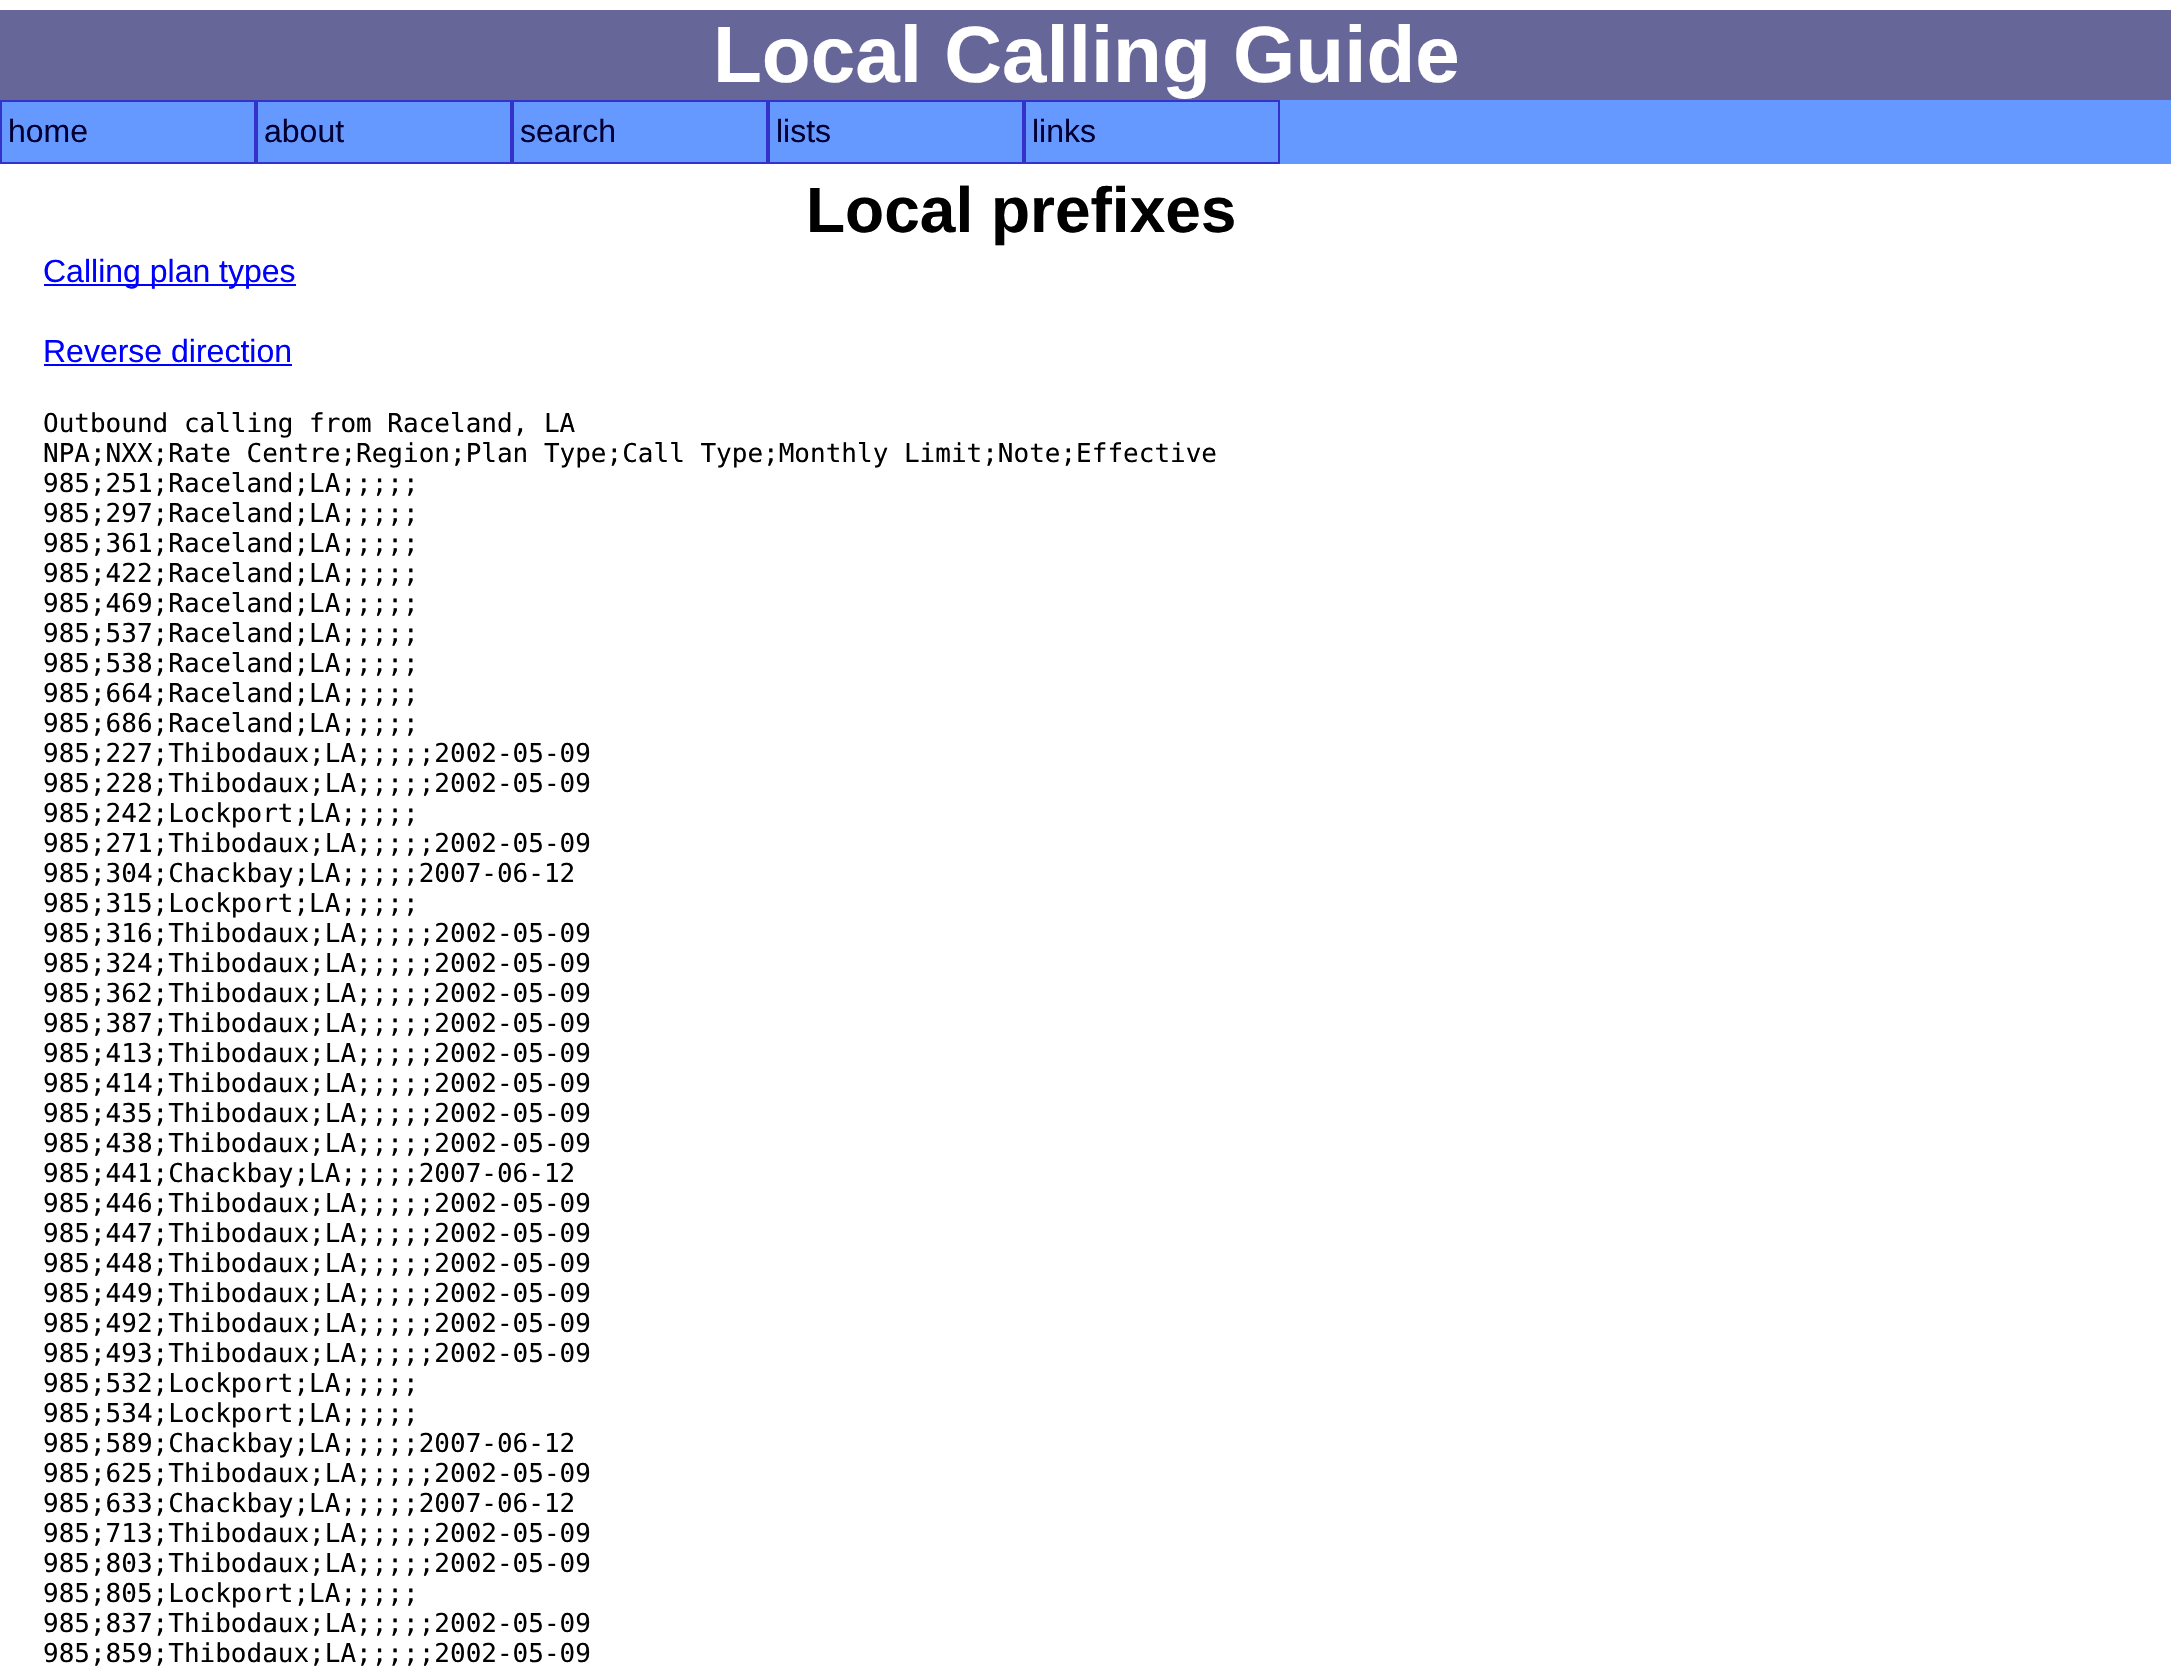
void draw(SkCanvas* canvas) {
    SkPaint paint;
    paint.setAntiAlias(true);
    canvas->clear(0xFFFFFFFF);
    paint.setColor(0xFF666699);
    canvas->drawRect(SkRect::MakeXYWH(0, 10, 2171, 90), paint);
    SkFont font1(fontMgr->matchFamilyStyle("Liberation Sans", SkFontStyle::Bold()), 80);
    font1.setSubpixel(true);
    paint.setColor(0xFFFFFFFF);
    canvas->drawString("Local Calling Guide", 713, 82, font1, paint);
    paint.setColor(0xFF6699FF);
    canvas->drawRect(SkRect::MakeXYWH(2, 100, 2169, 64), paint);
    paint.setStyle(SkPaint::kStroke_Style);
    paint.setStrokeWidth(2);
    paint.setColor(0xFF3333CC);
    canvas->drawRect(SkRect::MakeXYWH(1, 101, 254, 62), paint);
    SkFont font2(fontMgr->matchFamilyStyle("Liberation Sans", SkFontStyle::Normal()), 32);
    font2.setSubpixel(true);
    paint.setStyle(SkPaint::kFill_Style);
    paint.setColor(0xFF000033);
    canvas->drawString("home", 8, 142, font2, paint);
    paint.setStyle(SkPaint::kStroke_Style);
    paint.setColor(0xFF3333CC);
    canvas->drawRect(SkRect::MakeXYWH(257, 101, 254, 62), paint);
    paint.setStyle(SkPaint::kFill_Style);
    paint.setColor(0xFF000033);
    canvas->drawString("about", 264, 142, font2, paint);
    paint.setStyle(SkPaint::kStroke_Style);
    paint.setColor(0xFF3333CC);
    canvas->drawRect(SkRect::MakeXYWH(513, 101, 254, 62), paint);
    paint.setStyle(SkPaint::kFill_Style);
    paint.setColor(0xFF000033);
    canvas->drawString("search", 520, 142, font2, paint);
    paint.setStyle(SkPaint::kStroke_Style);
    paint.setColor(0xFF3333CC);
    canvas->drawRect(SkRect::MakeXYWH(769, 101, 254, 62), paint);
    paint.setStyle(SkPaint::kFill_Style);
    paint.setColor(0xFF000033);
    canvas->drawString("lists", 776, 142, font2, paint);
    paint.setStyle(SkPaint::kStroke_Style);
    paint.setColor(0xFF3333CC);
    canvas->drawRect(SkRect::MakeXYWH(1025, 101, 254, 62), paint);
    paint.setStyle(SkPaint::kFill_Style);
    paint.setColor(0xFF000033);
    canvas->drawString("links", 1032, 142, font2, paint);
    SkFont font3(fontMgr->matchFamilyStyle("Liberation Sans", SkFontStyle::Bold()), 64);
    font3.setSubpixel(true);
    paint.setColor(0xFF000000);
    canvas->drawString("Local prefixes", 806, 232, font3, paint);
    paint.setColor(0xFF0000FF);
    canvas->drawRect(SkRect::MakeXYWH(44, 284, 252, 2), paint);
    canvas->drawString("Calling plan types", 43, 282, font2, paint);
    canvas->drawString("Reverse direction", 43, 362, font2, paint);
    canvas->drawRect(SkRect::MakeXYWH(44, 364, 248, 2), paint);
    SkFont font4(fontMgr->matchFamilyStyle("DejaVu Sans Mono", SkFontStyle::Normal()), 26);
    font4.setSubpixel(true);
    paint.setColor(0xFF000000);
    canvas->drawString("Outbound calling from Raceland, LA", 43, 432, font4, paint);
    canvas->drawString("NPA;NXX;Rate Centre;Region;Plan Type;Call Type;Monthly Limit;Note;Effective", 43, 462, font4, paint);
    canvas->drawString("985;251;Raceland;LA;;;;;", 43, 492, font4, paint);
    canvas->drawString("985;297;Raceland;LA;;;;;", 43, 522, font4, paint);
    canvas->drawString("985;361;Raceland;LA;;;;;", 43, 552, font4, paint);
    canvas->drawString("985;422;Raceland;LA;;;;;", 43, 582, font4, paint);
    canvas->drawString("985;469;Raceland;LA;;;;;", 43, 612, font4, paint);
    canvas->drawString("985;537;Raceland;LA;;;;;", 43, 642, font4, paint);
    canvas->drawString("985;538;Raceland;LA;;;;;", 43, 672, font4, paint);
    canvas->drawString("985;664;Raceland;LA;;;;;", 43, 702, font4, paint);
    canvas->drawString("985;686;Raceland;LA;;;;;", 43, 732, font4, paint);
    canvas->drawString("985;227;Thibodaux;LA;;;;;2002-05-09", 43, 762, font4, paint);
    canvas->drawString("985;228;Thibodaux;LA;;;;;2002-05-09", 43, 792, font4, paint);
    canvas->drawString("985;242;Lockport;LA;;;;;", 43, 822, font4, paint);
    canvas->drawString("985;271;Thibodaux;LA;;;;;2002-05-09", 43, 852, font4, paint);
    canvas->drawString("985;304;Chackbay;LA;;;;;2007-06-12", 43, 882, font4, paint);
    canvas->drawString("985;315;Lockport;LA;;;;;", 43, 912, font4, paint);
    canvas->drawString("985;316;Thibodaux;LA;;;;;2002-05-09", 43, 942, font4, paint);
    canvas->drawString("985;324;Thibodaux;LA;;;;;2002-05-09", 43, 972, font4, paint);
    canvas->drawString("985;362;Thibodaux;LA;;;;;2002-05-09", 43, 1002, font4, paint);
    canvas->drawString("985;387;Thibodaux;LA;;;;;2002-05-09", 43, 1032, font4, paint);
    canvas->drawString("985;413;Thibodaux;LA;;;;;2002-05-09", 43, 1062, font4, paint);
    canvas->drawString("985;414;Thibodaux;LA;;;;;2002-05-09", 43, 1092, font4, paint);
    canvas->drawString("985;435;Thibodaux;LA;;;;;2002-05-09", 43, 1122, font4, paint);
    canvas->drawString("985;438;Thibodaux;LA;;;;;2002-05-09", 43, 1152, font4, paint);
    canvas->drawString("985;441;Chackbay;LA;;;;;2007-06-12", 43, 1182, font4, paint);
    canvas->drawString("985;446;Thibodaux;LA;;;;;2002-05-09", 43, 1212, font4, paint);
    canvas->drawString("985;447;Thibodaux;LA;;;;;2002-05-09", 43, 1242, font4, paint);
    canvas->drawString("985;448;Thibodaux;LA;;;;;2002-05-09", 43, 1272, font4, paint);
    canvas->drawString("985;449;Thibodaux;LA;;;;;2002-05-09", 43, 1302, font4, paint);
    canvas->drawString("985;492;Thibodaux;LA;;;;;2002-05-09", 43, 1332, font4, paint);
    canvas->drawString("985;493;Thibodaux;LA;;;;;2002-05-09", 43, 1362, font4, paint);
    canvas->drawString("985;532;Lockport;LA;;;;;", 43, 1392, font4, paint);
    canvas->drawString("985;534;Lockport;LA;;;;;", 43, 1422, font4, paint);
    canvas->drawString("985;589;Chackbay;LA;;;;;2007-06-12", 43, 1452, font4, paint);
    canvas->drawString("985;625;Thibodaux;LA;;;;;2002-05-09", 43, 1482, font4, paint);
    canvas->drawString("985;633;Chackbay;LA;;;;;2007-06-12", 43, 1512, font4, paint);
    canvas->drawString("985;713;Thibodaux;LA;;;;;2002-05-09", 43, 1542, font4, paint);
    canvas->drawString("985;803;Thibodaux;LA;;;;;2002-05-09", 43, 1572, font4, paint);
    canvas->drawString("985;805;Lockport;LA;;;;;", 43, 1602, font4, paint);
    canvas->drawString("985;837;Thibodaux;LA;;;;;2002-05-09", 43, 1632, font4, paint);
    canvas->drawString("985;859;Thibodaux;LA;;;;;2002-05-09", 43, 1662, font4, paint);
}
